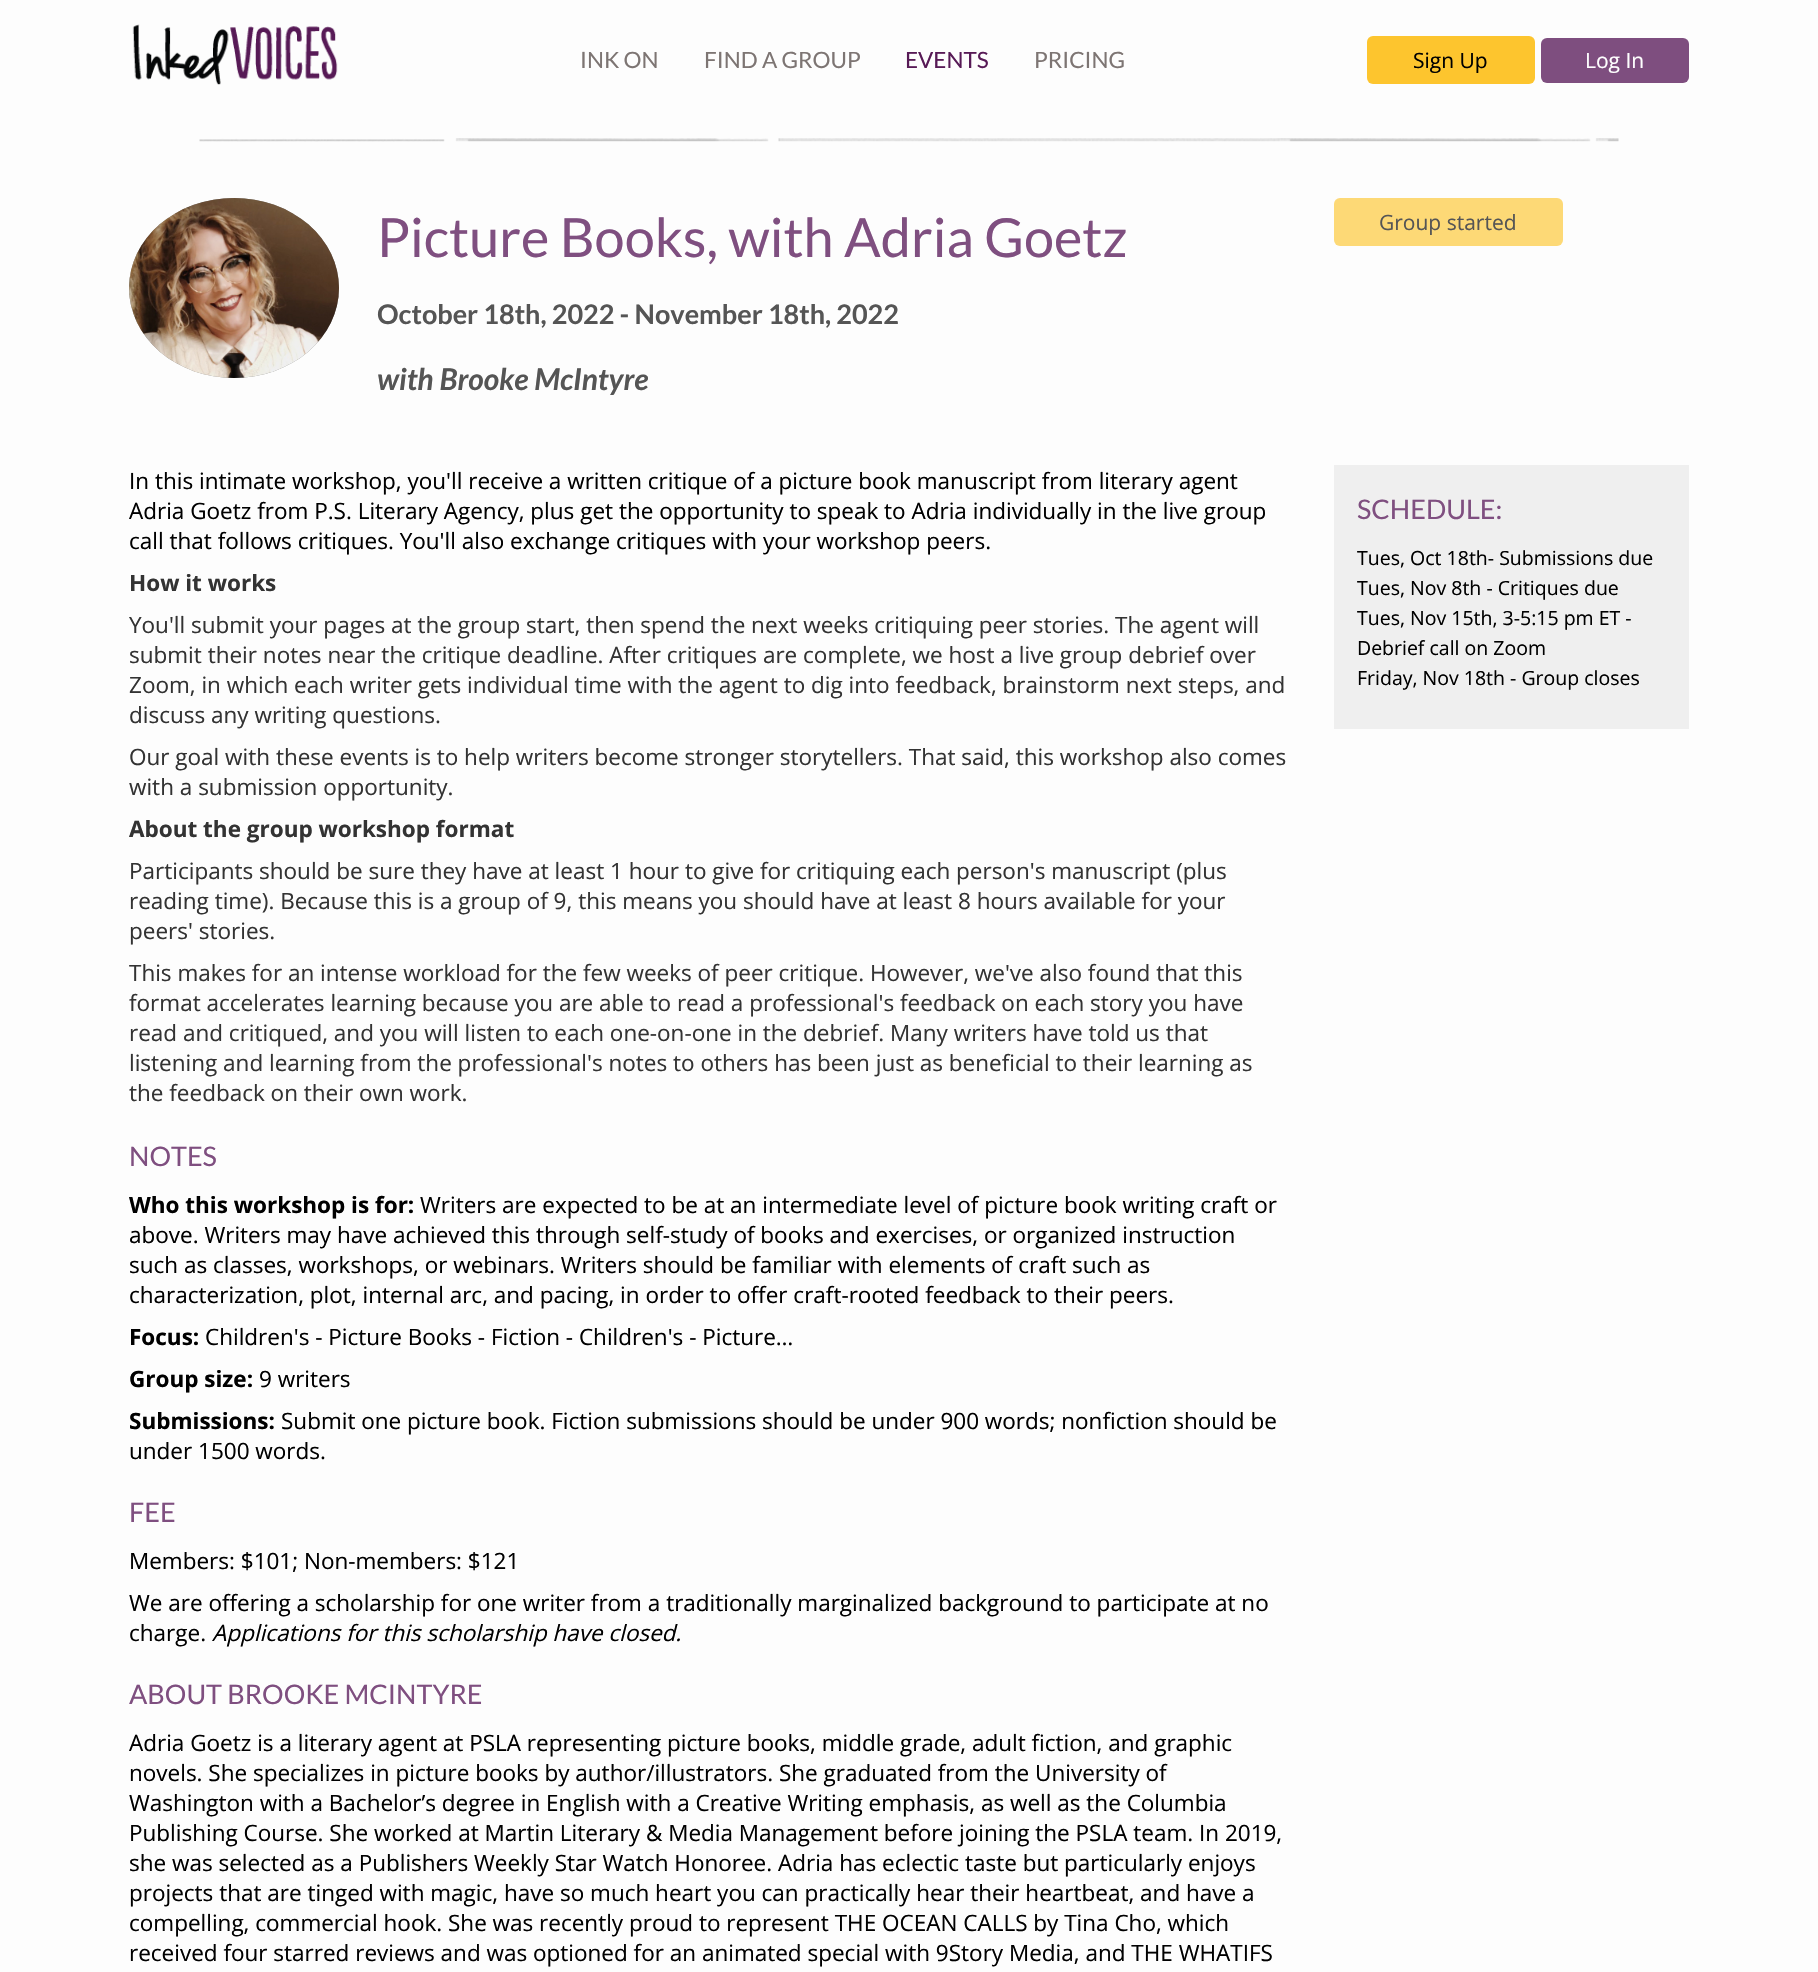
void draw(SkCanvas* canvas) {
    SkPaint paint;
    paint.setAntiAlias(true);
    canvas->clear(0xFFFDFDFD);
    canvas->drawImageRect(SkImages::DeferredFromEncodedData(SkData::MakeFromFileName("img1.png")), SkRect::MakeXYWH(132, 24, 206, 61), SkSamplingOptions());
    SkFont font1(fontMgr->matchFamilyStyle("Lato", SkFontStyle::Normal()), 22.5f);
    font1.setSubpixel(true);
    paint.setColor(0xFF7D7573);
    canvas->drawString("INK ON", 580, 68, font1, paint);
    canvas->drawString("FIND A GROUP", 704, 68, font1, paint);
    paint.setColor(0xFF571A56);
    canvas->drawString("EVENTS", 905, 68, font1, paint);
    paint.setColor(0xFF7D7573);
    canvas->drawString("PRICING", 1034, 68, font1, paint);
    paint.setColor(0xFFFDC52E);
    canvas->drawRoundRect(SkRect::MakeXYWH(1367, 36, 168, 48), 6, 6, paint);
    SkFont font2(fontMgr->matchFamilyStyle("Open Sans", SkFontStyle::Normal()), 21);
    font2.setSubpixel(true);
    paint.setColor(0xFF000000);
    canvas->drawString("Sign Up", 1413, 68, font2, paint);
    paint.setColor(0xFF7E4E7F);
    canvas->drawRoundRect(SkRect::MakeXYWH(1541, 38, 148, 45), 6, 6, paint);
    paint.setColor(0xFFFFFFFF);
    canvas->drawString("Log In", 1585, 68, font2, paint);
    canvas->drawImageRect(SkImages::DeferredFromEncodedData(SkData::MakeFromFileName("img2.png")), SkRect::MakeXYWH(199, 138, 1420, 4), SkSamplingOptions());
    paint.setColor(0xFF808080);
    canvas->drawOval(SkRect::MakeXYWH(129, 198, 210, 180), paint);
    canvas->drawImageRect(SkImages::DeferredFromEncodedData(SkData::MakeFromFileName("img3.png")), SkRect::MakeXYWH(129, 198, 210, 180), SkSamplingOptions());
    SkFont font3(fontMgr->matchFamilyStyle("Lato", SkFontStyle::Normal()), 54);
    font3.setSubpixel(true);
    paint.setColor(0xFF7F4F80);
    canvas->drawString("Picture Books, with Adria Goetz", 377, 257, font3, paint);
    SkFont font4(fontMgr->matchFamilyStyle("Lato", SkFontStyle::Bold()), 27);
    font4.setSubpixel(true);
    paint.setColor(0xFF555555);
    canvas->drawString("October 18th, 2022 - November 18th, 2022", 377, 324, font4, paint);
    SkFont font5(fontMgr->matchFamilyStyle("Lato", SkFontStyle::BoldItalic()), 30);
    font5.setSubpixel(true);
    canvas->drawString("with Brooke McIntyre", 377, 390, font5, paint);
    paint.setColor(0xFFFDD976);
    canvas->drawRoundRect(SkRect::MakeXYWH(1334, 198, 229, 48), 6, 6, paint);
    paint.setColor(0xFF555555);
    canvas->drawString("Group started", 1379, 230, font2, paint);
    SkFont font6(fontMgr->matchFamilyStyle("Open Sans", SkFontStyle::Normal()), 22.5f);
    font6.setSubpixel(true);
    paint.setColor(0xFF000000);
    canvas->drawString("In this intimate workshop, you'll receive a written critique of a picture book manuscript from literary agent", 129, 489, font6, paint);
    canvas->drawString("Adria Goetz from P.S. Literary Agency, plus get the opportunity to speak to Adria individually in the live group", 129, 519, font6, paint);
    canvas->drawString("call that follows critiques. You'll also exchange critiques with your workshop peers.", 129, 549, font6, paint);
    SkFont font7(fontMgr->matchFamilyStyle("Open Sans", SkFontStyle::Bold()), 22.5f);
    font7.setSubpixel(true);
    paint.setColor(0xFF333333);
    canvas->drawString("How it works", 129, 591, font7, paint);
    canvas->drawString("You'll submit your pages at the group start, then spend the next weeks critiquing peer stories. The agent will", 129, 633, font6, paint);
    canvas->drawString("submit their notes near the critique deadline. After critiques are complete, we host a live group debrief over", 129, 663, font6, paint);
    canvas->drawString("Zoom, in which each writer gets individual time with the agent to dig into feedback, brainstorm next steps, and", 129, 693, font6, paint);
    canvas->drawString("discuss any writing questions.", 129, 723, font6, paint);
    canvas->drawString("Our goal with these events is to help writers become stronger storytellers. That said, this workshop also comes", 129, 765, font6, paint);
    canvas->drawString("with a submission opportunity.", 129, 795, font6, paint);
    canvas->drawString("About the group workshop format", 129, 837, font7, paint);
    canvas->drawString("Participants should be sure they have at least 1 hour to give for critiquing each person's manuscript (plus", 129, 879, font6, paint);
    canvas->drawString("reading time). Because this is a group of 9, this means you should have at least 8 hours available for your", 129, 909, font6, paint);
    canvas->drawString("peers' stories.", 129, 939, font6, paint);
    canvas->drawString("This makes for an intense workload for the few weeks of peer critique. However, we've also found that this", 129, 981, font6, paint);
    canvas->drawString("format accelerates learning because you are able to read a professional's feedback on each story you have", 129, 1011, font6, paint);
    canvas->drawString("read and critiqued, and you will listen to each one-on-one in the debrief. Many writers have told us that", 129, 1041, font6, paint);
    canvas->drawString("listening and learning from the professional's notes to others has been just as beneficial to their learning as", 129, 1071, font6, paint);
    canvas->drawString("the feedback on their own work.", 129, 1101, font6, paint);
    SkFont font8(fontMgr->matchFamilyStyle("Lato", SkFontStyle::Normal()), 27);
    font8.setSubpixel(true);
    paint.setColor(0xFF7F4F80);
    canvas->drawString("NOTES", 129, 1166, font8, paint);
    paint.setColor(0xFF000000);
    canvas->drawString("Who this workshop is for:", 129, 1213, font7, paint);
    canvas->drawString("Writers are expected to be at an intermediate level of picture book writing craft or", 420, 1213, font6, paint);
    canvas->drawString("above. Writers may have achieved this through self-study of books and exercises, or organized instruction", 129, 1243, font6, paint);
    canvas->drawString("such as classes, workshops, or webinars. Writers should be familiar with elements of craft such as", 129, 1273, font6, paint);
    canvas->drawString("characterization, plot, internal arc, and pacing, in order to offer craft-rooted feedback to their peers.", 129, 1303, font6, paint);
    canvas->drawString("Focus:", 129, 1345, font7, paint);
    canvas->drawString("Children's - Picture Books - Fiction - Children's - Picture…", 205, 1345, font6, paint);
    canvas->drawString("Group size:", 129, 1387, font7, paint);
    canvas->drawString("9 writers", 259, 1387, font6, paint);
    canvas->drawString("Submissions:", 129, 1429, font7, paint);
    canvas->drawString("Submit one picture book. Fiction submissions should be under 900 words; nonfiction should be", 281, 1429, font6, paint);
    canvas->drawString("under 1500 words.", 129, 1459, font6, paint);
    paint.setColor(0xFF7F4F80);
    canvas->drawString("FEE", 129, 1522, font8, paint);
    paint.setColor(0xFF000000);
    canvas->drawString("Members: $101; Non-members: $121", 129, 1569, font6, paint);
    canvas->drawString("We are offering a scholarship for one writer from a traditionally marginalized background to participate at no", 129, 1611, font6, paint);
    canvas->drawString("charge.", 129, 1641, font6, paint);
    SkFont font9(fontMgr->matchFamilyStyle("Open Sans", SkFontStyle::Italic()), 22.5f);
    font9.setSubpixel(true);
    canvas->drawString("Applications for this scholarship have closed.", 212, 1641, font9, paint);
    paint.setColor(0xFF7F4F80);
    canvas->drawString("ABOUT BROOKE MCINTYRE", 129, 1704, font8, paint);
    paint.setColor(0xFF000000);
    canvas->drawString("Adria Goetz is a literary agent at PSLA representing picture books, middle grade, adult fiction, and graphic", 129, 1751, font6, paint);
    canvas->drawString("novels. She specializes in picture books by author/illustrators. She graduated from the University of", 129, 1781, font6, paint);
    canvas->drawString("Washington with a Bachelor’s degree in English with a Creative Writing emphasis, as well as the Columbia", 129, 1811, font6, paint);
    canvas->drawString("Publishing Course. She worked at Martin Literary & Media Management before joining the PSLA team. In 2019,", 129, 1841, font6, paint);
    canvas->drawString("she was selected as a Publishers Weekly Star Watch Honoree. Adria has eclectic taste but particularly enjoys", 129, 1871, font6, paint);
    canvas->drawString("projects that are tinged with magic, have so much heart you can practically hear their heartbeat, and have a", 129, 1901, font6, paint);
    canvas->drawString("compelling, commercial hook. She was recently proud to represent THE OCEAN CALLS by Tina Cho, which", 129, 1931, font6, paint);
    canvas->drawString("received four starred reviews and was optioned for an animated special with 9Story Media, and THE WHATIFS", 129, 1961, font6, paint);
    paint.setColor(0xFFEFEFEF);
    canvas->drawRect(SkRect::MakeXYWH(1334, 465, 355, 264), paint);
    paint.setColor(0xFF7F4F80);
    canvas->drawString("SCHEDULE:", 1357, 519, font8, paint);
    SkFont font10(fontMgr->matchFamilyStyle("Open Sans", SkFontStyle::Normal()), 19.5f);
    font10.setSubpixel(true);
    paint.setColor(0xFF000000);
    canvas->drawString("Tues, Oct 18th- Submissions due", 1357, 565, font10, paint);
    canvas->drawString("Tues, Nov 8th - Critiques due", 1357, 595, font10, paint);
    canvas->drawString("Tues, Nov 15th, 3-5:15 pm ET -", 1357, 625, font10, paint);
    canvas->drawString("Debrief call on Zoom", 1357, 655, font10, paint);
    canvas->drawString("Friday, Nov 18th - Group closes", 1357, 685, font10, paint);
}
